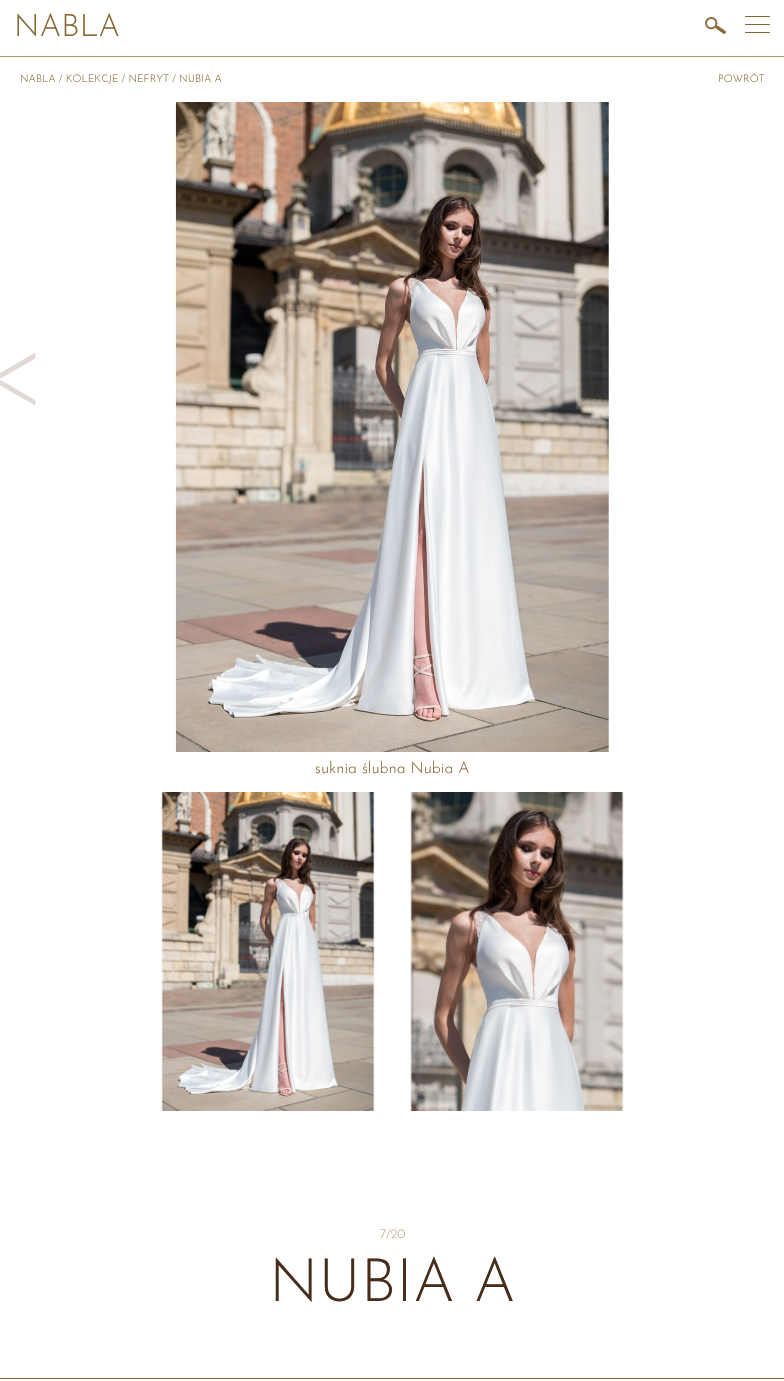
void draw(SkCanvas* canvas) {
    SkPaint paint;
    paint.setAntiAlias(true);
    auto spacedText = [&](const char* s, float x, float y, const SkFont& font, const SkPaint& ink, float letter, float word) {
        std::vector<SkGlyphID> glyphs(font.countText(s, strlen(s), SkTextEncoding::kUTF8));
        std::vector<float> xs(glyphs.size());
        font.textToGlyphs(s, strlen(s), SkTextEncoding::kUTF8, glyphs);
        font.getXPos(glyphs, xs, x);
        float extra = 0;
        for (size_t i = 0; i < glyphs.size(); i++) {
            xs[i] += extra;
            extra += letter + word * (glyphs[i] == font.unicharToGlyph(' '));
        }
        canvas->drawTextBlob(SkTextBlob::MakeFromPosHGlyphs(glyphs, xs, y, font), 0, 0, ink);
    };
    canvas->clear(0xFFFFFFFF);
    paint.setColor(0xFFB49864);
    canvas->drawRect(SkRect::MakeXYWH(0, 56, 784, 1), paint);
    SkFont font1(fontMgr->matchFamilyStyle("Josefin Sans", SkFontStyle(300, SkFontStyle::kNormal_Width, SkFontStyle::kUpright_Slant)), 31);
    font1.setSubpixel(true);
    paint.setColor(0xFF866733);
    canvas->drawString("NABLA", 14, 36, font1, paint);
    canvas->drawImageRect(SkImages::DeferredFromEncodedData(SkData::MakeFromFileName("img1.png")), SkRect::MakeXYWH(705, 17, 21, 17), SkSamplingOptions());
    canvas->drawRoundRect(SkRect::MakeXYWH(745, 24, 25, 1), 0.5f, 0.5f, paint);
    canvas->drawRoundRect(SkRect::MakeXYWH(745, 16, 25, 1), 0.5f, 0.5f, paint);
    canvas->drawRoundRect(SkRect::MakeXYWH(745, 32, 25, 1), 0.5f, 0.5f, paint);
    SkFont font2(fontMgr->matchFamilyStyle("Josefin Sans", SkFontStyle(300, SkFontStyle::kNormal_Width, SkFontStyle::kUpright_Slant)), 10.4f);
    font2.setSubpixel(true);
    canvas->drawString("NABLA / KOLEKCJE / NEFRYT / NUBIA A", 20, 82, font2, paint);
    canvas->drawString("POWRÓT", 718, 82, font2, paint);
    SkFont font3(fontMgr->matchFamilyStyle("Josefin Sans", SkFontStyle(300, SkFontStyle::kNormal_Width, SkFontStyle::kUpright_Slant)), 104);
    font3.setSubpixel(true);
    paint.setColor(0xFFE1D9D6);
    spacedText("<", -20, 404, font3, paint, -34, 0);
    canvas->drawImageRect(SkImages::DeferredFromEncodedData(SkData::MakeFromFileName("img2.png")), SkRect::MakeXYWH(174, 102, 437, 650), SkSamplingOptions());
    SkFont font4(fontMgr->matchFamilyStyle("Josefin Sans", SkFontStyle(300, SkFontStyle::kNormal_Width, SkFontStyle::kUpright_Slant)), 16);
    font4.setSubpixel(true);
    paint.setColor(0xFF866733);
    canvas->drawString("suknia ślubna Nubia A", 315, 773, font4, paint);
    canvas->drawImageRect(SkImages::DeferredFromEncodedData(SkData::MakeFromFileName("img3.png")), SkRect::MakeXYWH(161, 792, 214, 319), SkSamplingOptions());
    canvas->drawImageRect(SkImages::DeferredFromEncodedData(SkData::MakeFromFileName("img4.png")), SkRect::MakeXYWH(410, 792, 214, 319), SkSamplingOptions());
    SkFont font5(fontMgr->matchFamilyStyle("Josefin Sans", SkFontStyle(300, SkFontStyle::kNormal_Width, SkFontStyle::kUpright_Slant)), 13);
    font5.setSubpixel(true);
    paint.setColor(0xFFBBA781);
    canvas->drawString("7/20", 380, 1238, font5, paint);
    SkFont font6(fontMgr->matchFamilyStyle("Josefin Sans", SkFontStyle(300, SkFontStyle::kNormal_Width, SkFontStyle::kUpright_Slant)), 60);
    font6.setSubpixel(true);
    paint.setColor(0xFF472D1C);
    canvas->drawString("NUBIA A", 269, 1301, font6, paint);
    paint.setColor(0xFF866733);
    canvas->drawRect(SkRect::MakeXYWH(0, 1378, 784, 1), paint);
}
